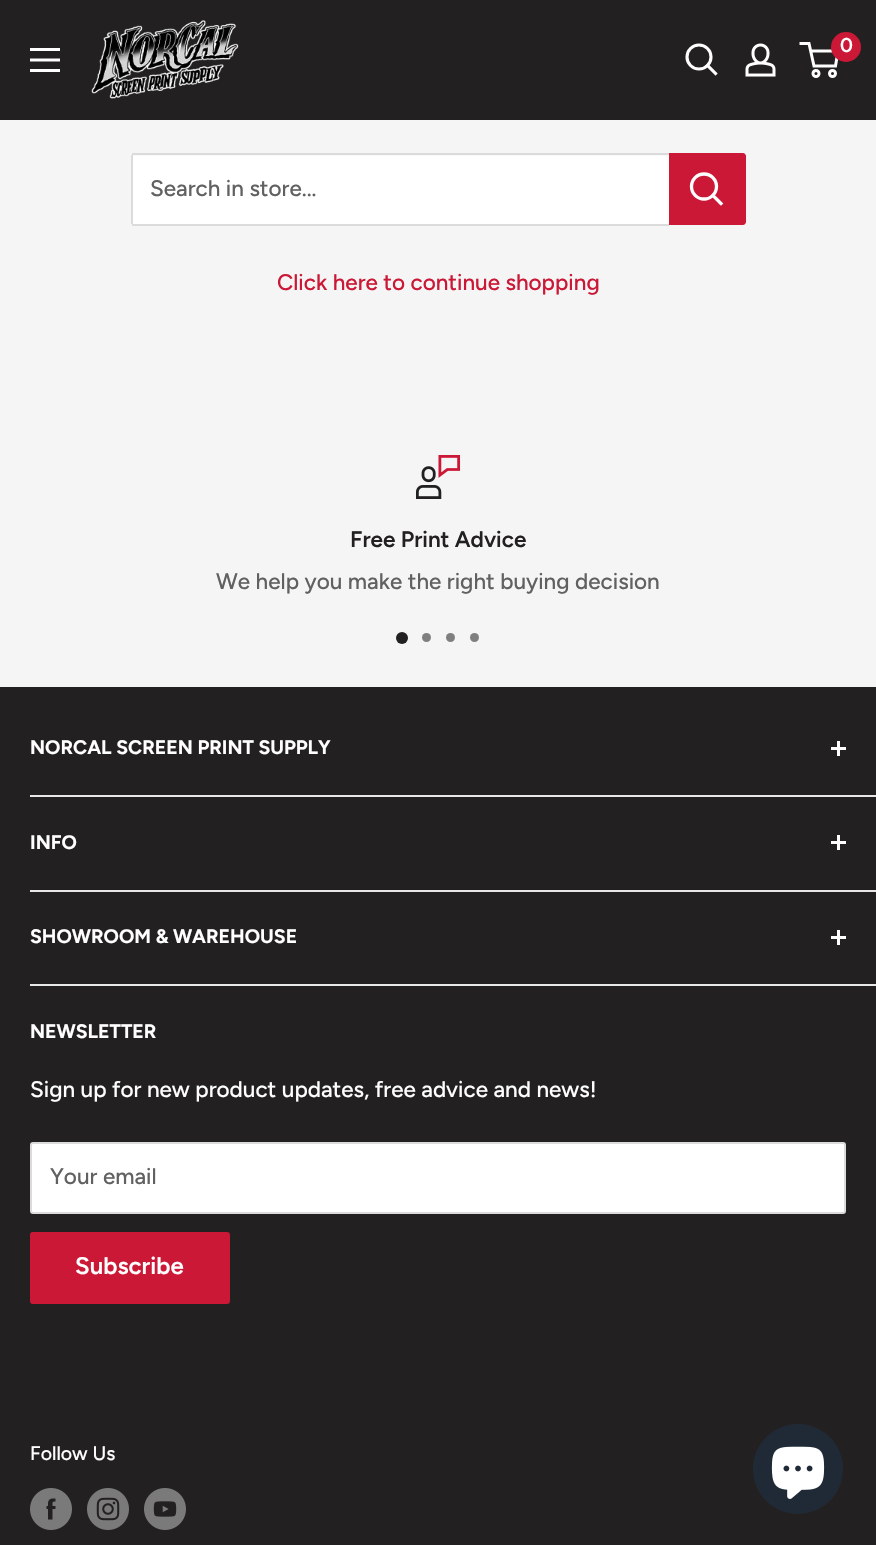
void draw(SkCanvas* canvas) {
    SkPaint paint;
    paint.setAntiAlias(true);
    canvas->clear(0xFFF5F5F5);
    paint.setColor(0xFF222021);
    canvas->drawRect(SkRect::MakeXYWH(0, 0, 876, 120), paint);
    canvas->drawImageRect(SkImages::DeferredFromEncodedData(SkData::MakeFromFileName("img1.png")), SkRect::MakeXYWH(91, 20, 148, 79), SkSamplingOptions());
    paint.setStyle(SkPaint::kStroke_Style);
    paint.setStrokeWidth(3.1f);
    paint.setStrokeCap(SkPaint::kSquare_Cap);
    paint.setColor(0xFFFFFFFF);
    canvas->drawPath(SkPathBuilder().moveTo(715.5f, 73.5f).lineTo(707.5f, 65.5f).detach(), paint);
    paint.setStrokeCap(SkPaint::kButt_Cap);
    canvas->drawCircle(699, 57, 12, paint);
    canvas->drawImageRect(SkImages::DeferredFromEncodedData(SkData::MakeFromFileName("img2.png")), SkRect::MakeXYWH(745, 43, 31, 34), SkSamplingOptions());
    paint.setStrokeWidth(3);
    canvas->drawCircle(816, 73.5f, 3, paint);
    canvas->drawCircle(832.5f, 73.5f, 3, paint);
    canvas->drawPath(SkPathBuilder().moveTo(810.5f, 51).lineTo(838, 51).lineTo(835.5f, 66).lineTo(814, 66).lineTo(809, 43.5f).lineTo(799.5f, 43.5f).detach(), paint);
    paint.setStyle(SkPaint::kFill_Style);
    paint.setColor(0xFFCB1836);
    canvas->drawCircle(846, 47, 15, paint);
    SkFont font1(fontMgr->matchFamilyStyle("Figtree", SkFontStyle(600, SkFontStyle::kNormal_Width, SkFontStyle::kUpright_Slant)), 20);
    font1.setSubpixel(true);
    paint.setColor(0xFFFFFFFF);
    canvas->drawString("0", 840, 52, font1, paint);
    canvas->drawImageRect(SkImages::DeferredFromEncodedData(SkData::MakeFromFileName("img3.png")), SkRect::MakeXYWH(30, 48, 30, 24), SkSamplingOptions());
    canvas->drawPath(SkPathBuilder().moveTo(134, 153).lineTo(669, 153).lineTo(669, 225).lineTo(134, 225).cubicTo(132.5f, 225, 131, 223.5f, 131, 222).lineTo(131, 156).cubicTo(131, 154.5f, 132.5f, 153, 134, 153).close().detach(), paint);
    paint.setColor(0xFFF9F9F9);
    canvas->drawPath(SkPathBuilder().moveTo(134, 156).lineTo(669, 156).lineTo(669, 155).lineTo(134, 155).cubicTo(132, 155, 132, 157, 132, 158).cubicTo(132, 157, 133, 156, 134, 156).close().detach(), paint);
    paint.setColor(0xFFDBDBDB);
    canvas->drawRect(SkRect::MakeXYWH(132, 153, 537, 2), paint);
    canvas->drawRect(SkRect::MakeXYWH(132, 224, 537, 2), paint);
    canvas->drawRect(SkRect::MakeXYWH(131, 155, 2, 69), paint);
    SkFont font2(fontMgr->matchFamilyStyle("Figtree", SkFontStyle(500, SkFontStyle::kNormal_Width, SkFontStyle::kUpright_Slant)), 22.5f);
    font2.setSubpixel(true);
    paint.setColor(0xFF616161);
    canvas->drawString("Search in store...", 150, 196, font2, paint);
    paint.setColor(0xFFCB1836);
    canvas->drawPath(SkPathBuilder().moveTo(669, 153).lineTo(743, 153).cubicTo(744.5f, 153, 746, 154.5f, 746, 156).lineTo(746, 222).cubicTo(746, 223.5f, 744.5f, 225, 743, 225).lineTo(669, 225).close().detach(), paint);
    paint.setStyle(SkPaint::kStroke_Style);
    paint.setStrokeWidth(3.3f);
    paint.setStrokeCap(SkPaint::kSquare_Cap);
    paint.setColor(0xFFFFFFFF);
    canvas->drawPath(SkPathBuilder().moveTo(721, 203.5f).lineTo(713, 195.5f).detach(), paint);
    paint.setStrokeCap(SkPaint::kButt_Cap);
    canvas->drawCircle(704, 186.5f, 12.5f, paint);
    paint.setStyle(SkPaint::kFill_Style);
    paint.setColor(0xFFCB1836);
    canvas->drawString("Click here to continue shopping", 277, 290, font2, paint);
    canvas->drawImageRect(SkImages::DeferredFromEncodedData(SkData::MakeFromFileName("img4.png")), SkRect::MakeXYWH(416, 455, 45, 44), SkSamplingOptions());
    SkFont font3(fontMgr->matchFamilyStyle("Figtree", SkFontStyle(600, SkFontStyle::kNormal_Width, SkFontStyle::kUpright_Slant)), 22.5f);
    font3.setSubpixel(true);
    paint.setColor(0xFF222021);
    canvas->drawString("Free Print Advice", 350, 547, font3, paint);
    paint.setColor(0xFF616161);
    canvas->drawString("We help you make the right buying decision", 216, 589, font2, paint);
    paint.setColor(0xFF222021);
    canvas->drawCircle(402, 638, 6, paint);
    paint.setColor(0xFF7F7F7F);
    canvas->drawCircle(426.5f, 637.5f, 4.5f, paint);
    canvas->drawCircle(450.5f, 637.5f, 4.5f, paint);
    canvas->drawCircle(474.5f, 637.5f, 4.5f, paint);
    paint.setColor(0xFF222021);
    canvas->drawRect(SkRect::MakeXYWH(0, 687, 876, 858), paint);
    paint.setColor(0xFFE8E8E8);
    canvas->drawRect(SkRect::MakeXYWH(30, 795, 846, 2), paint);
    SkFont font4(fontMgr->matchFamilyStyle("Figtree", SkFontStyle::Bold()), 19.5f);
    font4.setSubpixel(true);
    paint.setColor(0xFFFFFFFF);
    canvas->drawString("NORCAL SCREEN PRINT SUPPLY", 30, 754, font4, paint);
    canvas->drawRect(SkRect::MakeXYWH(837, 741, 3, 15), paint);
    canvas->drawRect(SkRect::MakeXYWH(831, 747, 15, 3), paint);
    paint.setColor(0xFFE8E8E8);
    canvas->drawRect(SkRect::MakeXYWH(30, 890, 846, 2), paint);
    paint.setColor(0xFFFFFFFF);
    canvas->drawString("INFO", 30, 849, font4, paint);
    canvas->drawRect(SkRect::MakeXYWH(837, 835, 3, 15), paint);
    canvas->drawRect(SkRect::MakeXYWH(831, 841, 15, 3), paint);
    paint.setColor(0xFFE8E8E8);
    canvas->drawRect(SkRect::MakeXYWH(30, 984, 846, 2), paint);
    paint.setColor(0xFFFFFFFF);
    canvas->drawString("SHOWROOM & WAREHOUSE", 30, 943, font4, paint);
    canvas->drawRect(SkRect::MakeXYWH(837, 930, 3, 15), paint);
    canvas->drawRect(SkRect::MakeXYWH(831, 936, 15, 3), paint);
    canvas->drawString("NEWSLETTER", 30, 1038, font4, paint);
    canvas->drawString("Sign up for new product updates, free advice and news!", 30, 1097, font2, paint);
    canvas->drawRoundRect(SkRect::MakeXYWH(31, 1143, 814, 70), 2, 2, paint);
    paint.setStyle(SkPaint::kStroke_Style);
    paint.setStrokeWidth(2);
    paint.setColor(0xFFDBDBDB);
    canvas->drawRoundRect(SkRect::MakeXYWH(31, 1143, 814, 70), 2, 2, paint);
    paint.setStyle(SkPaint::kFill_Style);
    paint.setColor(0xFF616161);
    canvas->drawString("Your email", 50, 1184, font2, paint);
    paint.setColor(0xFFCB1836);
    canvas->drawRoundRect(SkRect::MakeXYWH(30, 1232, 200, 72), 3, 3, paint);
    SkFont font5(fontMgr->matchFamilyStyle("Figtree", SkFontStyle(600, SkFontStyle::kNormal_Width, SkFontStyle::kUpright_Slant)), 24);
    font5.setSubpixel(true);
    paint.setColor(0xFFFFFFFF);
    canvas->drawString("Subscribe", 75, 1274, font5, paint);
    SkFont font6(fontMgr->matchFamilyStyle("Figtree", SkFontStyle(500, SkFontStyle::kNormal_Width, SkFontStyle::kUpright_Slant)), 19.5f);
    font6.setSubpixel(true);
    canvas->drawString("Follow Us", 30, 1460, font6, paint);
    canvas->drawImageRect(SkImages::DeferredFromEncodedData(SkData::MakeFromFileName("img5.png")), SkRect::MakeXYWH(30, 1488, 42, 42), SkSamplingOptions());
    canvas->drawImageRect(SkImages::DeferredFromEncodedData(SkData::MakeFromFileName("img6.png")), SkRect::MakeXYWH(87, 1488, 42, 42), SkSamplingOptions());
    canvas->drawImageRect(SkImages::DeferredFromEncodedData(SkData::MakeFromFileName("img7.png")), SkRect::MakeXYWH(144, 1488, 42, 42), SkSamplingOptions());
    paint.setColor(0xFF202A36);
    canvas->drawCircle(798, 1469, 45, paint);
    canvas->drawImageRect(SkImages::DeferredFromEncodedData(SkData::MakeFromFileName("img8.png")), SkRect::MakeXYWH(771, 1446, 54, 53), SkSamplingOptions());
}
